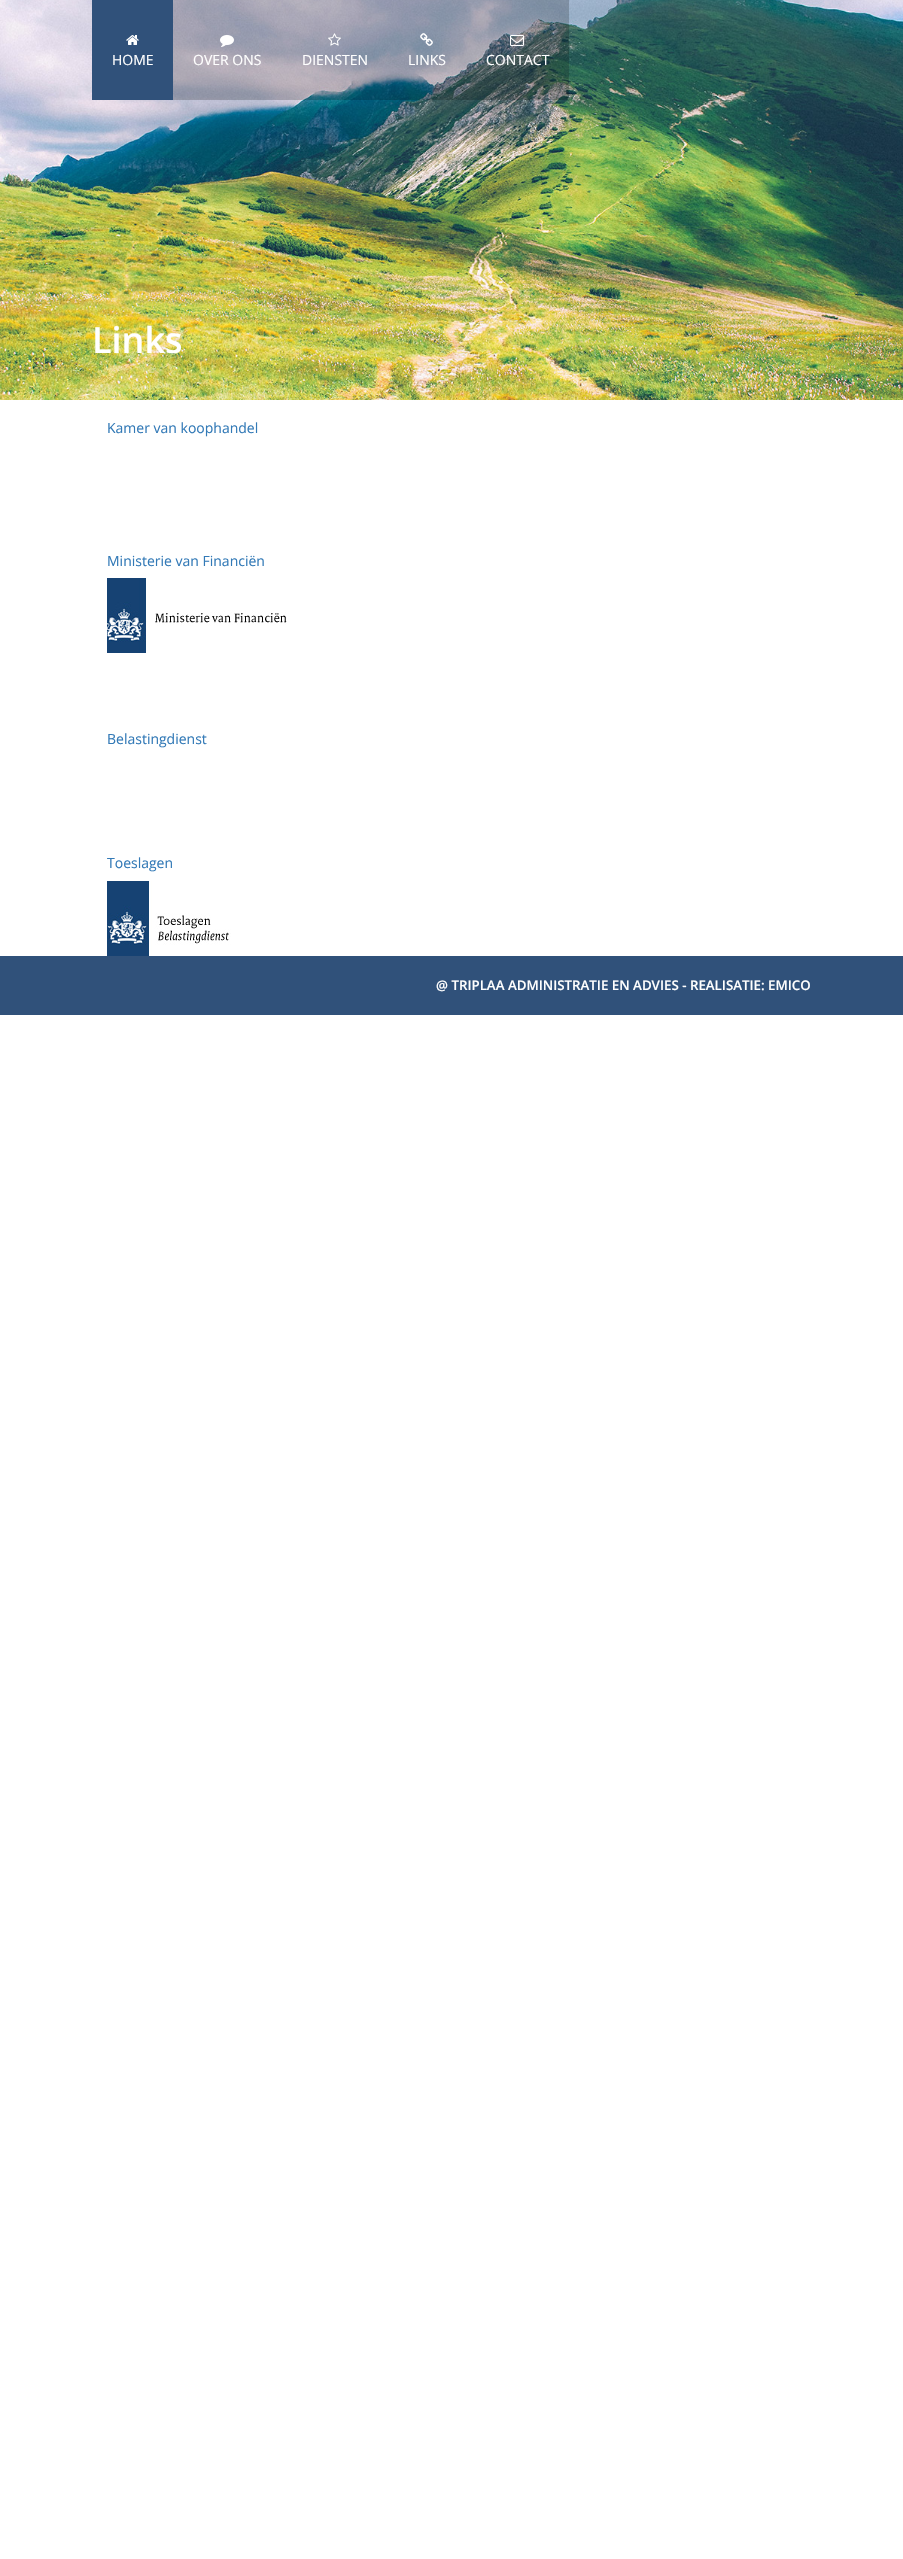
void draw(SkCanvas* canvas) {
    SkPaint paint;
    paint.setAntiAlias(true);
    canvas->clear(0xFFFFFFFF);
    canvas->drawImageRect(SkImages::DeferredFromEncodedData(SkData::MakeFromFileName("img6.png")), SkRect::MakeXYWH(0, 0, 903, 400), SkSamplingOptions());
    paint.setColor(0xFF30517A);
    canvas->drawRect(SkRect::MakeXYWH(92, 0, 81, 100), paint);
    canvas->drawImageRect(SkImages::DeferredFromEncodedData(SkData::MakeFromFileName("img1.png")), SkRect::MakeXYWH(126, 35, 13, 10), SkSamplingOptions());
    SkFont font1(fontMgr->matchFamilyStyle("Open Sans", SkFontStyle::Normal()), 14);
    font1.setSubpixel(true);
    paint.setColor(0xFFFFFFFF);
    canvas->drawString("HOME", 112, 65, font1, paint);
    paint.setColor(0x33000000);
    canvas->drawRect(SkRect::MakeXYWH(173, 0, 109, 100), paint);
    canvas->drawImageRect(SkImages::DeferredFromEncodedData(SkData::MakeFromFileName("img2.png")), SkRect::MakeXYWH(220, 35, 14, 12), SkSamplingOptions());
    paint.setColor(0xFFFFFFFF);
    canvas->drawString("OVER ONS", 193, 65, font1, paint);
    paint.setColor(0x33000000);
    canvas->drawRect(SkRect::MakeXYWH(282, 0, 106, 100), paint);
    canvas->drawImageRect(SkImages::DeferredFromEncodedData(SkData::MakeFromFileName("img3.png")), SkRect::MakeXYWH(328, 33, 13, 13), SkSamplingOptions());
    paint.setColor(0xFFFFFFFF);
    canvas->drawString("DIENSTEN", 302, 65, font1, paint);
    paint.setColor(0x33000000);
    canvas->drawRect(SkRect::MakeXYWH(388, 0, 78, 100), paint);
    canvas->drawImageRect(SkImages::DeferredFromEncodedData(SkData::MakeFromFileName("img4.png")), SkRect::MakeXYWH(420, 33, 13, 13), SkSamplingOptions());
    paint.setColor(0xFFFFFFFF);
    canvas->drawString("LINKS", 408, 65, font1, paint);
    paint.setColor(0x33000000);
    canvas->drawRect(SkRect::MakeXYWH(466, 0, 103, 100), paint);
    canvas->drawImageRect(SkImages::DeferredFromEncodedData(SkData::MakeFromFileName("img5.png")), SkRect::MakeXYWH(510, 35, 14, 11), SkSamplingOptions());
    paint.setColor(0xFFFFFFFF);
    canvas->drawString("CONTACT", 486, 65, font1, paint);
    SkFont font2(fontMgr->matchFamilyStyle("Open Sans", SkFontStyle(600, SkFontStyle::kNormal_Width, SkFontStyle::kUpright_Slant)), 36);
    font2.setSubpixel(true);
    canvas->drawString("Links", 92, 353, font2, paint);
    paint.setColor(0xFF337AB7);
    canvas->drawString("Kamer van koophandel", 107, 433, font1, paint);
    canvas->drawString("Ministerie van Financiën", 107, 566, font1, paint);
    canvas->drawImageRect(SkImages::DeferredFromEncodedData(SkData::MakeFromFileName("img7.png")), SkRect::MakeXYWH(107, 578, 180, 75), SkSamplingOptions());
    canvas->drawString("Belastingdienst", 107, 744, font1, paint);
    canvas->drawString("Toeslagen", 107, 868, font1, paint);
    canvas->drawImageRect(SkImages::DeferredFromEncodedData(SkData::MakeFromFileName("img8.png")), SkRect::MakeXYWH(107, 881, 124, 75), SkSamplingOptions());
    paint.setColor(0xFF30517A);
    canvas->drawRect(SkRect::MakeXYWH(0, 956, 903, 59), paint);
    SkFont font3(fontMgr->matchFamilyStyle("Open Sans", SkFontStyle(600, SkFontStyle::kNormal_Width, SkFontStyle::kUpright_Slant)), 13.3f);
    font3.setSubpixel(true);
    paint.setColor(0xFFFFFFFF);
    canvas->drawString("@ TRIPLAA ADMINISTRATIE EN ADVIES - REALISATIE: EMICO", 436, 990, font3, paint);
}
